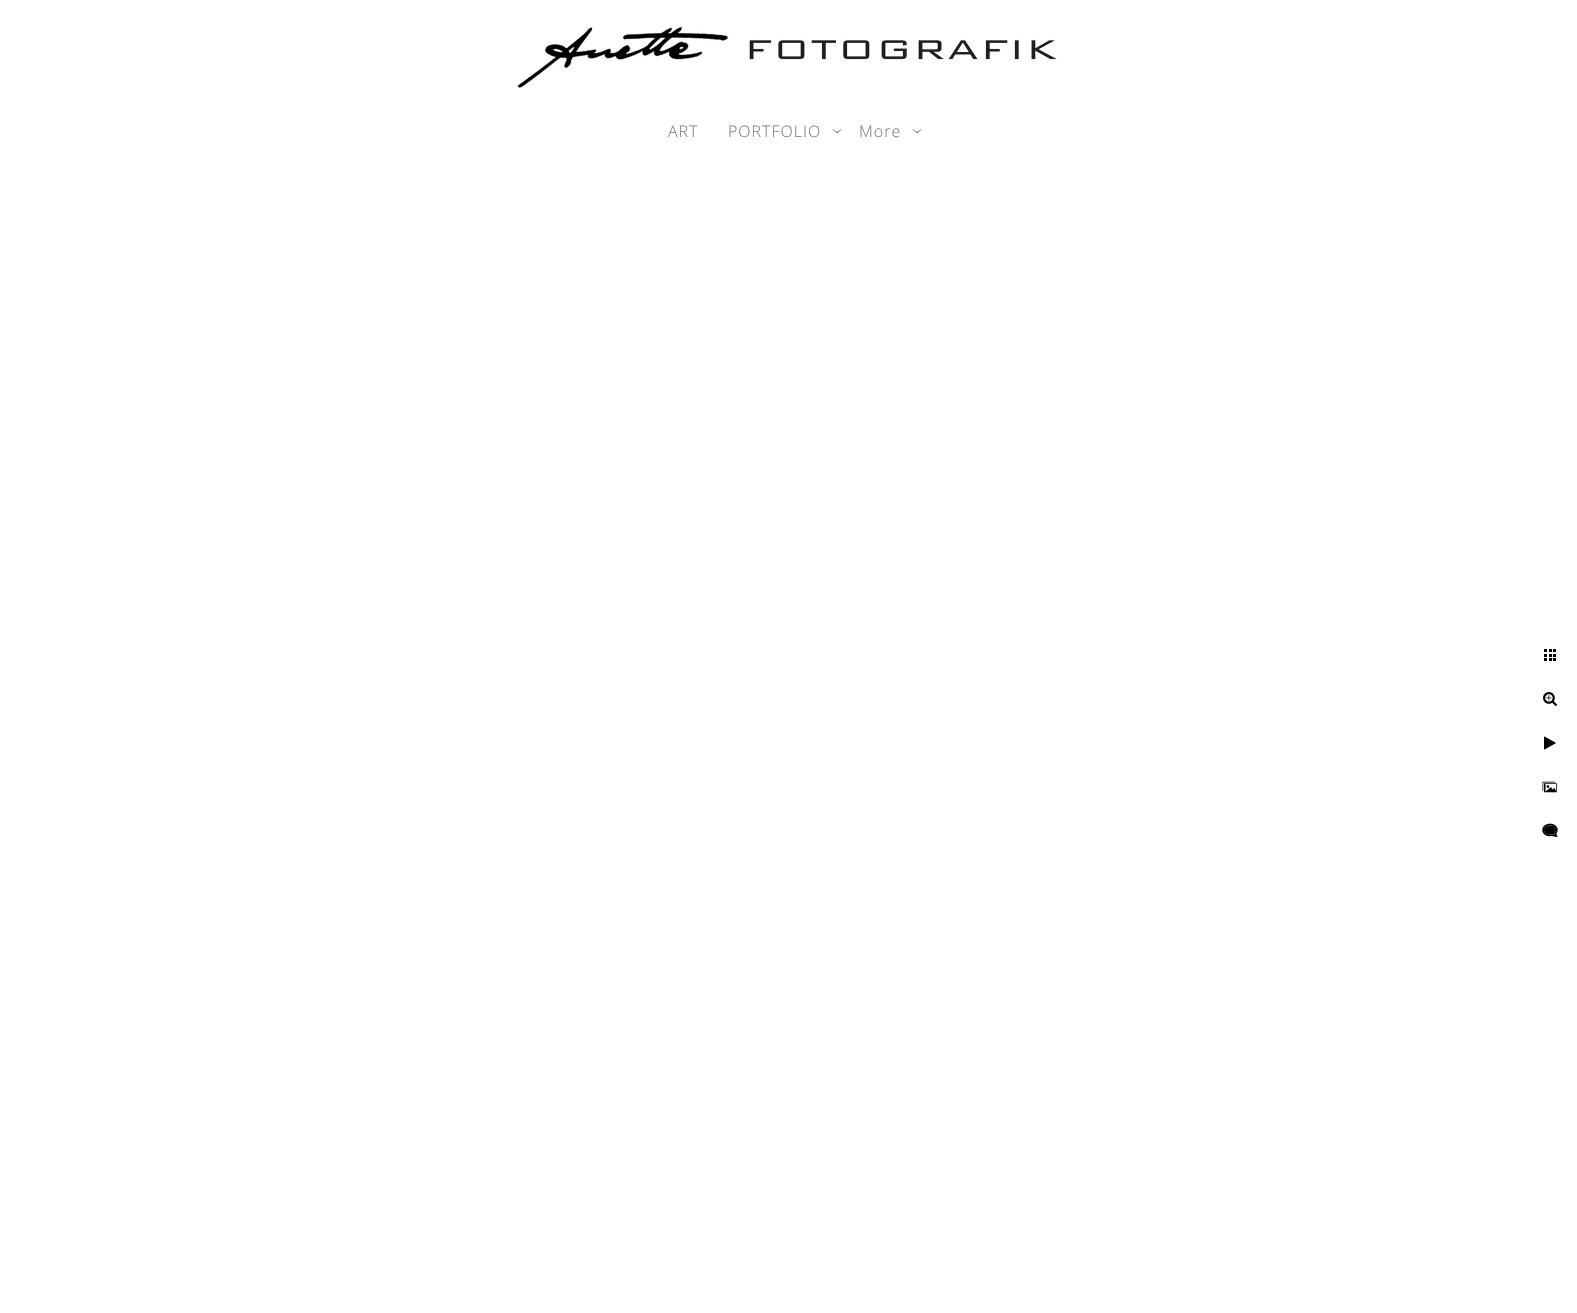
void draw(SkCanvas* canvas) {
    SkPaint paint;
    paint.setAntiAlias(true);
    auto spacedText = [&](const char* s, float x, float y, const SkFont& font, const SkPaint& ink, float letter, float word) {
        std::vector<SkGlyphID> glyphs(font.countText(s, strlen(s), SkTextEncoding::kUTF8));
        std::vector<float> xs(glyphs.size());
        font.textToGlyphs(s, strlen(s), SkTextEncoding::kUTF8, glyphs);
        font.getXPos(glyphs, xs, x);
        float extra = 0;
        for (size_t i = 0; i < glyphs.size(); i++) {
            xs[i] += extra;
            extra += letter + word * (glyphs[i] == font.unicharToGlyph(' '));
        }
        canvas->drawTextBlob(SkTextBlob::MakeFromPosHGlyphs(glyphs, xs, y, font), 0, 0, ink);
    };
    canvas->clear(0xFFFFFFFF);
    canvas->drawImageRect(SkImages::DeferredFromEncodedData(SkData::MakeFromFileName("img1.png")), SkRect::MakeXYWH(517, 26, 540, 62), SkSamplingOptions());
    SkFont font1(fontMgr->matchFamilyStyle("Open Sans", SkFontStyle(300, SkFontStyle::kNormal_Width, SkFontStyle::kUpright_Slant)), 16);
    font1.setSubpixel(true);
    paint.setColor(0xFF808080);
    spacedText("ART", 668, 137, font1, paint, 1, 0);
    spacedText("PORTFOLIO", 728, 137, font1, paint, 1, 0);
    canvas->drawImageRect(SkImages::DeferredFromEncodedData(SkData::MakeFromFileName("img2.png")), SkRect::MakeXYWH(832, 128, 10, 6), SkSamplingOptions());
    spacedText("More", 859, 137, font1, paint, 1, 0);
    canvas->drawImageRect(SkImages::DeferredFromEncodedData(SkData::MakeFromFileName("img2.png")), SkRect::MakeXYWH(912, 128, 10, 6), SkSamplingOptions());
    canvas->drawImageRect(SkImages::DeferredFromEncodedData(SkData::MakeFromFileName("img3.png")), SkRect::MakeXYWH(1544, 649, 12, 12), SkSamplingOptions());
    canvas->drawImageRect(SkImages::DeferredFromEncodedData(SkData::MakeFromFileName("img4.png")), SkRect::MakeXYWH(1543, 692, 14, 14), SkSamplingOptions());
    canvas->drawImageRect(SkImages::DeferredFromEncodedData(SkData::MakeFromFileName("img5.png")), SkRect::MakeXYWH(1544, 736, 12, 14), SkSamplingOptions());
    canvas->drawImageRect(SkImages::DeferredFromEncodedData(SkData::MakeFromFileName("img6.png")), SkRect::MakeXYWH(1542, 781, 15, 12), SkSamplingOptions());
    canvas->drawImageRect(SkImages::DeferredFromEncodedData(SkData::MakeFromFileName("img7.png")), SkRect::MakeXYWH(1542, 823, 16, 15), SkSamplingOptions());
}
